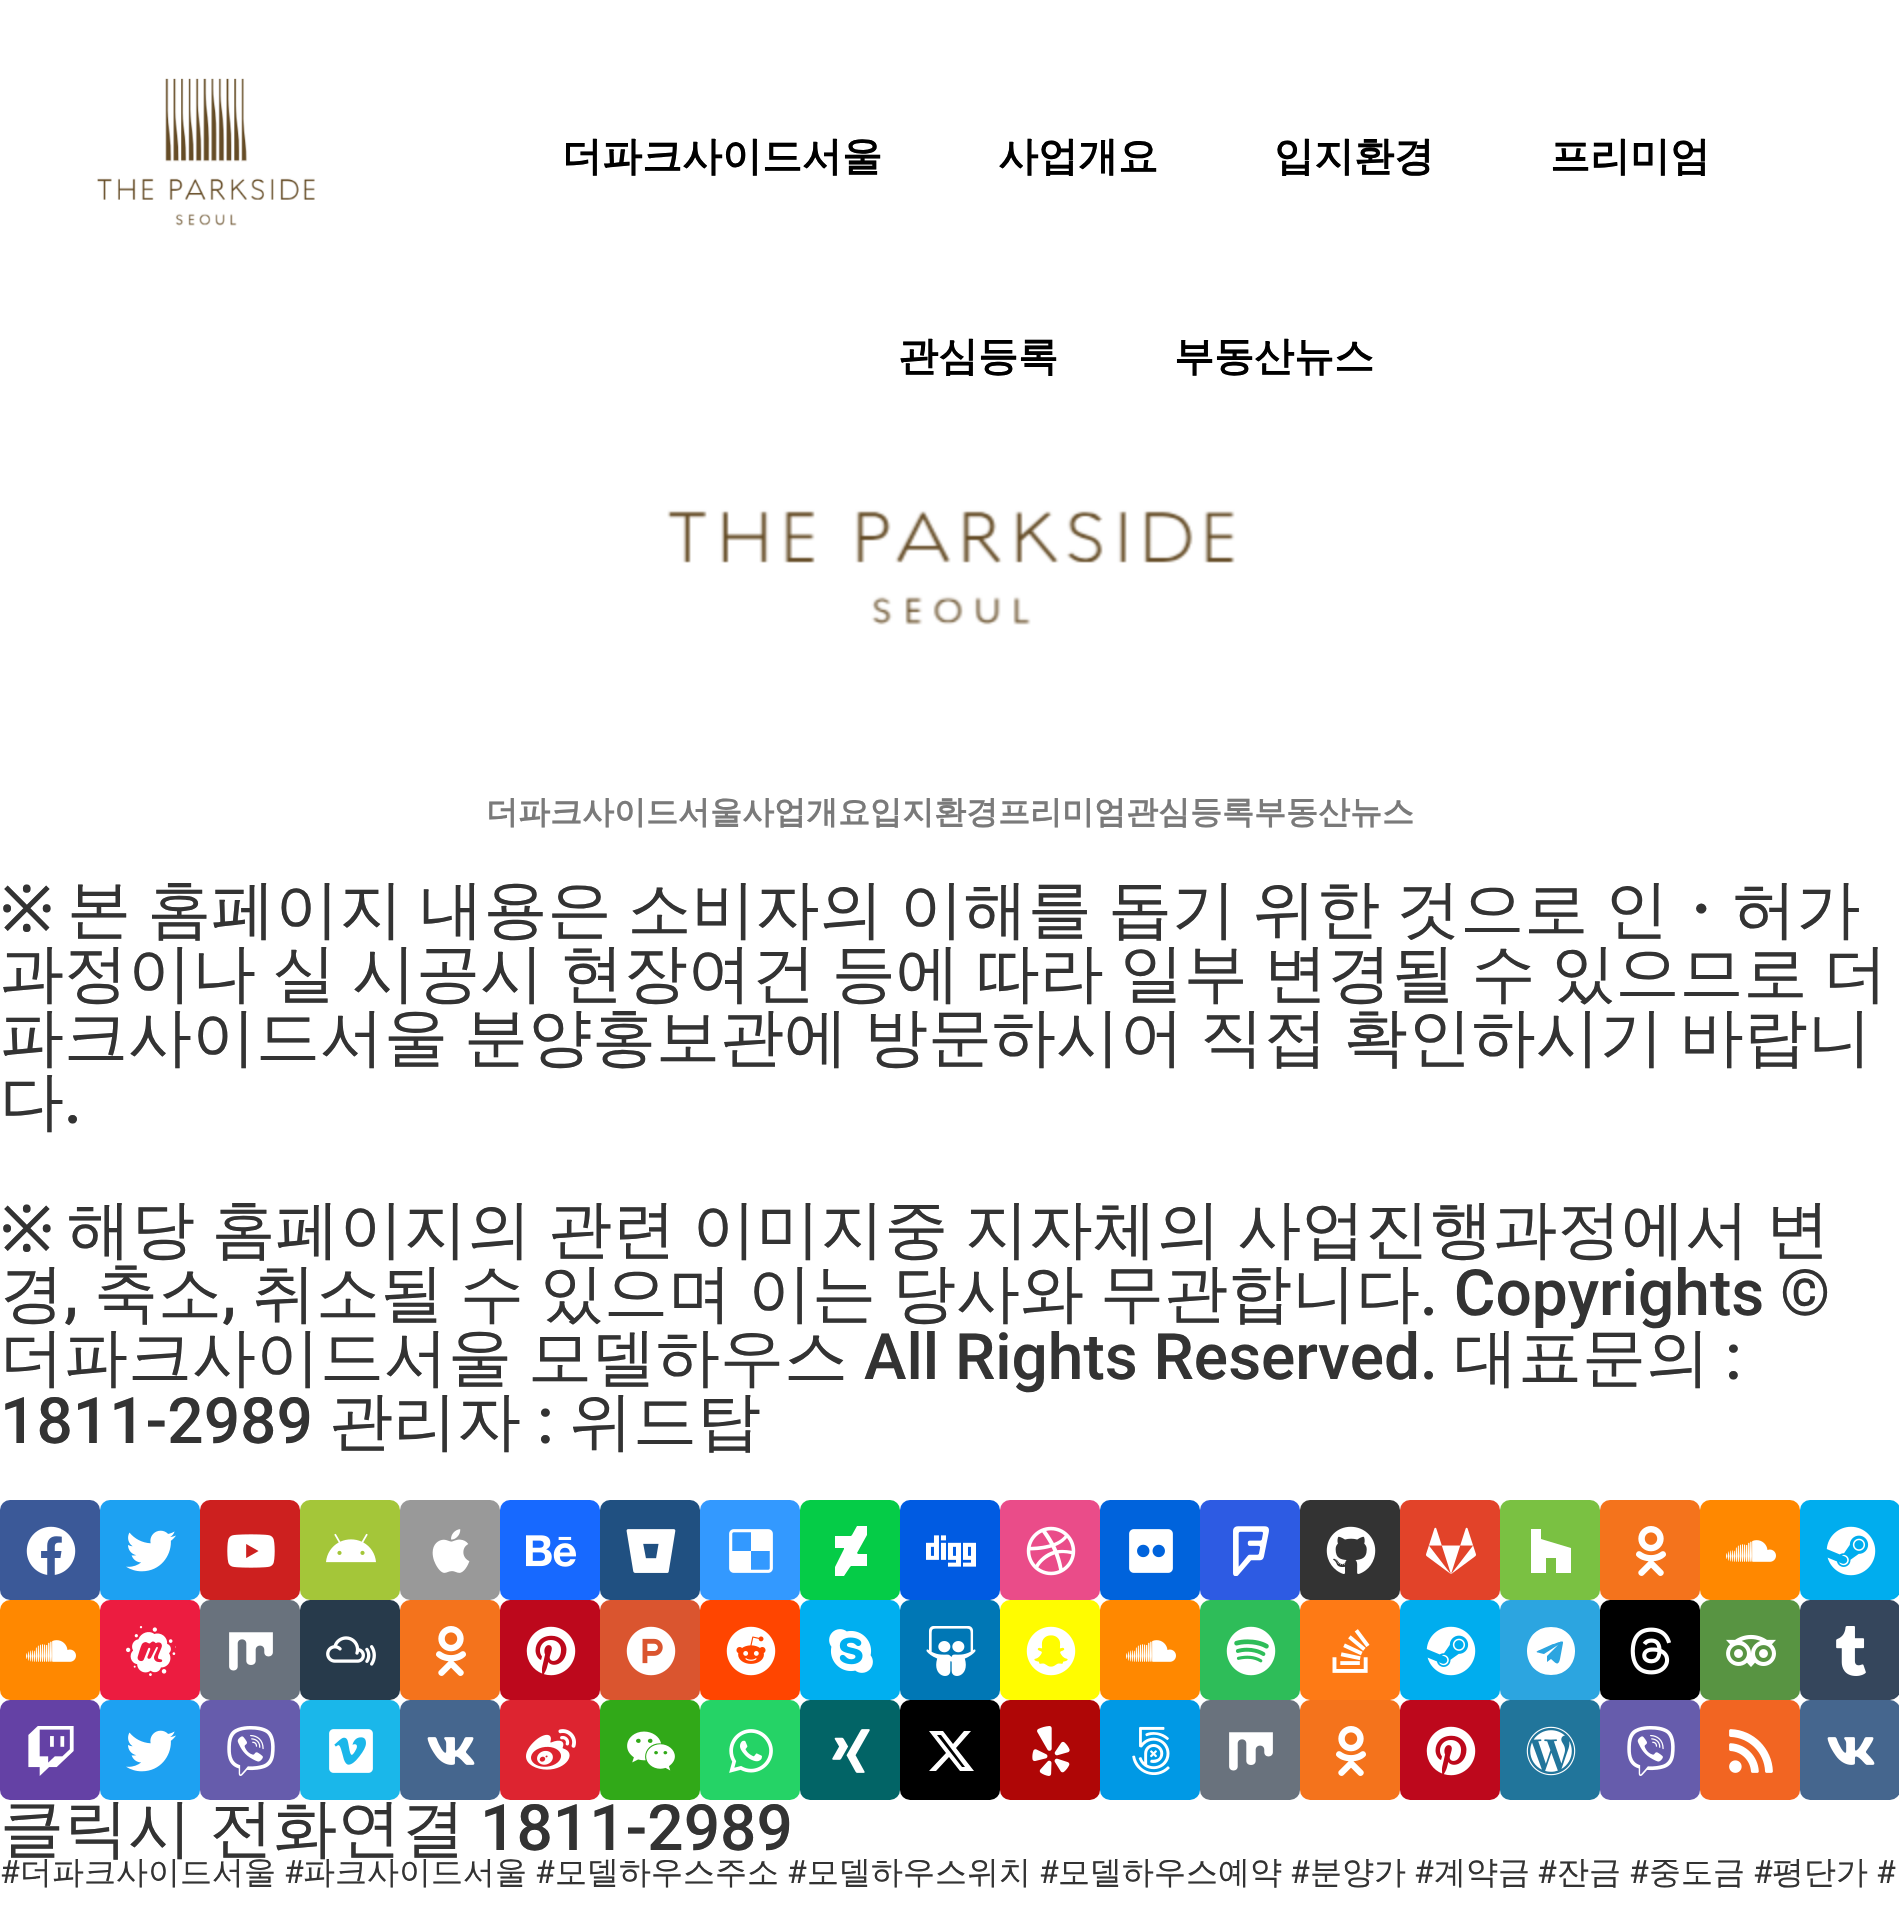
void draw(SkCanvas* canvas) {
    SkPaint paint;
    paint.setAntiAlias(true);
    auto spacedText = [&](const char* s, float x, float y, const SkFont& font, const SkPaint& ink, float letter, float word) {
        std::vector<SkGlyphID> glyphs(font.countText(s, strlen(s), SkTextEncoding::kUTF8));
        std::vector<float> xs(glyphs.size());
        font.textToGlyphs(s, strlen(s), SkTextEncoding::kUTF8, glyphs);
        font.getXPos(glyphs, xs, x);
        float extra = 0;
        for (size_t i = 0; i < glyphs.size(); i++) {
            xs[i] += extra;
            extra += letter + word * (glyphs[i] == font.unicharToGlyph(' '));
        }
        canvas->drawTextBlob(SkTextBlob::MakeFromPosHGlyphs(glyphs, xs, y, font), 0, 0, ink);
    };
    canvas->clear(0xFFFFFFFF);
    canvas->drawImageRect(SkImages::DeferredFromEncodedData(SkData::MakeFromFileName("img1.png")), SkRect::MakeXYWH(97, 78, 218, 148), SkSamplingOptions());
    SkFont font1(fontMgr->matchFamilyStyle("WenQuanYi Zen Hei", SkFontStyle::Bold()), 40);
    font1.setSubpixel(true);
    paint.setColor(0xFF000000);
    canvas->drawString("더파크사이드서울", 562, 170, font1, paint);
    canvas->drawString("사업개요", 998, 170, font1, paint);
    canvas->drawString("입지환경", 1274, 170, font1, paint);
    canvas->drawString("프리미엄", 1550, 170, font1, paint);
    canvas->drawString("관심등록", 898, 370, font1, paint);
    canvas->drawString("부동산뉴스", 1174, 370, font1, paint);
    canvas->drawImageRect(SkImages::DeferredFromEncodedData(SkData::MakeFromFileName("img2.png")), SkRect::MakeXYWH(667, 496, 568, 129), SkSamplingOptions());
    SkFont font2(fontMgr->matchFamilyStyle("WenQuanYi Zen Hei", SkFontStyle::Bold()), 32);
    font2.setSubpixel(true);
    paint.setColor(0xFF7A7A7A);
    canvas->drawString("더파크사이드서울사업개요입지환경프리미엄관심등록부동산뉴스", 486, 823, font2, paint);
    SkFont font3(fontMgr->matchFamilyStyle("Noto Sans", SkFontStyle(500, SkFontStyle::kNormal_Width, SkFontStyle::kUpright_Slant)), 64);
    font3.setSubpixel(true);
    paint.setColor(0xFF333333);
    canvas->drawString("※", 0, 931, font3, paint);
    SkFont font4(fontMgr->matchFamilyStyle("WenQuanYi Zen Hei", SkFontStyle(500, SkFontStyle::kNormal_Width, SkFontStyle::kUpright_Slant)), 64);
    font4.setSubpixel(true);
    spacedText("본 홈페이지 내용은 소비자의 이해를 돕기 위한 것으로 인・허가", 67, 931, font4, paint, 0, -3);
    spacedText("과정이나 실 시공시 현장여건 등에 따라 일부 변경될 수 있으므로 더", 0, 995, font4, paint, 0, -3.25f);
    spacedText("파크사이드서울 분양홍보관에 방문하시어 직접 확인하시기 바랍니", 0, 1059, font4, paint, 0, -3.25f);
    canvas->drawString("다", 0, 1123, font4, paint);
    SkFont font5(fontMgr->matchFamilyStyle("Roboto", SkFontStyle(500, SkFontStyle::kNormal_Width, SkFontStyle::kUpright_Slant)), 64);
    font5.setSubpixel(true);
    canvas->drawString(".", 64, 1123, font5, paint);
    canvas->drawString("※", 0, 1251, font3, paint);
    spacedText("해당 홈페이지의 관련 이미지중 지자체의 사업진행과정에서 변", 67, 1251, font4, paint, 0, -2.75f);
    canvas->drawString("경", 0, 1315, font4, paint);
    canvas->drawString(",", 64, 1315, font5, paint);
    canvas->drawString("축소", 94, 1315, font4, paint);
    canvas->drawString(",", 222, 1315, font5, paint);
    canvas->drawString("취소될", 252, 1315, font4, paint);
    canvas->drawString("수", 460, 1315, font4, paint);
    canvas->drawString("있으며", 540, 1315, font4, paint);
    canvas->drawString("이는", 748, 1315, font4, paint);
    canvas->drawString("당사와", 892, 1315, font4, paint);
    canvas->drawString("무관합니다", 1100, 1315, font4, paint);
    canvas->drawString(". Copyrights ©", 1420, 1315, font5, paint);
    canvas->drawString("더파크사이드서울", 0, 1379, font4, paint);
    canvas->drawString("모델하우스", 528, 1379, font4, paint);
    canvas->drawString("All Rights Reserved.", 864, 1379, font5, paint);
    canvas->drawString("대표문의", 1454, 1379, font4, paint);
    canvas->drawString(":", 1725, 1379, font5, paint);
    canvas->drawString("1811-2989", 0, 1443, font5, paint);
    canvas->drawString("관리자", 329, 1443, font4, paint);
    canvas->drawString(":", 537, 1443, font5, paint);
    canvas->drawString("위드탑", 569, 1443, font4, paint);
    paint.setColor(0xFF3B5998);
    canvas->drawRoundRect(SkRect::MakeXYWH(0, 1500, 100, 100), 10, 10, paint);
    canvas->drawImageRect(SkImages::DeferredFromEncodedData(SkData::MakeFromFileName("img3.png")), SkRect::MakeXYWH(26, 1526, 50, 49), SkSamplingOptions());
    paint.setColor(0xFF1DA1F2);
    canvas->drawRoundRect(SkRect::MakeXYWH(100, 1500, 100, 100), 10, 10, paint);
    canvas->drawImageRect(SkImages::DeferredFromEncodedData(SkData::MakeFromFileName("img4.png")), SkRect::MakeXYWH(126, 1530, 50, 42), SkSamplingOptions());
    paint.setColor(0xFFCD201F);
    canvas->drawRoundRect(SkRect::MakeXYWH(200, 1500, 100, 100), 10, 10, paint);
    canvas->drawImageRect(SkImages::DeferredFromEncodedData(SkData::MakeFromFileName("img5.png")), SkRect::MakeXYWH(227, 1534, 48, 34), SkSamplingOptions());
    paint.setColor(0xFFA4C639);
    canvas->drawRoundRect(SkRect::MakeXYWH(300, 1500, 100, 100), 10, 10, paint);
    canvas->drawImageRect(SkImages::DeferredFromEncodedData(SkData::MakeFromFileName("img6.png")), SkRect::MakeXYWH(326, 1533, 50, 30), SkSamplingOptions());
    paint.setColor(0xFF999999);
    canvas->drawRoundRect(SkRect::MakeXYWH(400, 1500, 100, 100), 10, 10, paint);
    canvas->drawImageRect(SkImages::DeferredFromEncodedData(SkData::MakeFromFileName("img7.png")), SkRect::MakeXYWH(432, 1529, 38, 44), SkSamplingOptions());
    paint.setColor(0xFF1769FF);
    canvas->drawRoundRect(SkRect::MakeXYWH(500, 1500, 100, 100), 10, 10, paint);
    canvas->drawImageRect(SkImages::DeferredFromEncodedData(SkData::MakeFromFileName("img8.png")), SkRect::MakeXYWH(526, 1535, 50, 32), SkSamplingOptions());
    paint.setColor(0xFF205081);
    canvas->drawRoundRect(SkRect::MakeXYWH(600, 1500, 100, 100), 10, 10, paint);
    canvas->drawImageRect(SkImages::DeferredFromEncodedData(SkData::MakeFromFileName("img9.png")), SkRect::MakeXYWH(626, 1529, 50, 44), SkSamplingOptions());
    paint.setColor(0xFF3399FF);
    canvas->drawRoundRect(SkRect::MakeXYWH(700, 1500, 100, 100), 10, 10, paint);
    canvas->drawImageRect(SkImages::DeferredFromEncodedData(SkData::MakeFromFileName("img10.png")), SkRect::MakeXYWH(729, 1529, 44, 44), SkSamplingOptions());
    paint.setColor(0xFF05CC47);
    canvas->drawRoundRect(SkRect::MakeXYWH(800, 1500, 100, 100), 10, 10, paint);
    paint.setColor(0xFFFFFFFF);
    canvas->drawPath(SkPathBuilder().moveTo(867, 1535).lineTo(857, 1553).lineTo(858, 1554).lineTo(867, 1554).lineTo(867, 1566).lineTo(851, 1566).lineTo(850, 1567).lineTo(844, 1576).lineTo(835, 1576).lineTo(835, 1567).lineTo(844, 1549).lineTo(844, 1548).lineTo(835, 1548).lineTo(835, 1536).lineTo(851, 1536).lineTo(852, 1535).lineTo(857, 1526).lineTo(867, 1526).close().detach(), paint);
    paint.setColor(0xFF005BE2);
    canvas->drawRoundRect(SkRect::MakeXYWH(900, 1500, 100, 100), 10, 10, paint);
    canvas->drawImageRect(SkImages::DeferredFromEncodedData(SkData::MakeFromFileName("img11.png")), SkRect::MakeXYWH(926, 1535, 50, 32), SkSamplingOptions());
    paint.setColor(0xFFEA4C89);
    canvas->drawRoundRect(SkRect::MakeXYWH(1000, 1500, 100, 100), 10, 10, paint);
    canvas->drawImageRect(SkImages::DeferredFromEncodedData(SkData::MakeFromFileName("img12.png")), SkRect::MakeXYWH(1026, 1526, 50, 50), SkSamplingOptions());
    paint.setColor(0xFF0063DC);
    canvas->drawRoundRect(SkRect::MakeXYWH(1100, 1500, 100, 100), 10, 10, paint);
    canvas->drawImageRect(SkImages::DeferredFromEncodedData(SkData::MakeFromFileName("img13.png")), SkRect::MakeXYWH(1129, 1529, 44, 44), SkSamplingOptions());
    paint.setColor(0xFF2D5BE3);
    canvas->drawRoundRect(SkRect::MakeXYWH(1200, 1500, 100, 100), 10, 10, paint);
    canvas->drawImageRect(SkImages::DeferredFromEncodedData(SkData::MakeFromFileName("img14.png")), SkRect::MakeXYWH(1233, 1526, 36, 50), SkSamplingOptions());
    paint.setColor(0xFF333333);
    canvas->drawRoundRect(SkRect::MakeXYWH(1300, 1500, 100, 100), 10, 10, paint);
    canvas->drawImageRect(SkImages::DeferredFromEncodedData(SkData::MakeFromFileName("img15.png")), SkRect::MakeXYWH(1326, 1526, 50, 48), SkSamplingOptions());
    paint.setColor(0xFFE24329);
    canvas->drawRoundRect(SkRect::MakeXYWH(1400, 1500, 100, 100), 10, 10, paint);
    canvas->drawImageRect(SkImages::DeferredFromEncodedData(SkData::MakeFromFileName("img16.png")), SkRect::MakeXYWH(1426, 1527, 50, 47), SkSamplingOptions());
    paint.setColor(0xFF7AC142);
    canvas->drawRoundRect(SkRect::MakeXYWH(1500, 1500, 100, 100), 10, 10, paint);
    paint.setColor(0xFFFFFFFF);
    canvas->drawPath(SkPathBuilder().moveTo(1556, 1558).lineTo(1546, 1558).lineTo(1546, 1573).lineTo(1531, 1573).lineTo(1531, 1529).lineTo(1541, 1529).lineTo(1541, 1539).lineTo(1571, 1548).lineTo(1571, 1573).lineTo(1556, 1573).close().detach(), paint);
    paint.setColor(0xFFF4731C);
    canvas->drawRoundRect(SkRect::MakeXYWH(1600, 1500, 100, 100), 10, 10, paint);
    canvas->drawImageRect(SkImages::DeferredFromEncodedData(SkData::MakeFromFileName("img17.png")), SkRect::MakeXYWH(1636, 1526, 30, 50), SkSamplingOptions());
    paint.setColor(0xFFFF8800);
    canvas->drawRoundRect(SkRect::MakeXYWH(1700, 1500, 100, 100), 10, 10, paint);
    canvas->drawImageRect(SkImages::DeferredFromEncodedData(SkData::MakeFromFileName("img18.png")), SkRect::MakeXYWH(1726, 1540, 50, 22), SkSamplingOptions());
    paint.setColor(0xFF00ADEE);
    canvas->drawRoundRect(SkRect::MakeXYWH(1800, 1500, 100, 100), 10, 10, paint);
    canvas->drawImageRect(SkImages::DeferredFromEncodedData(SkData::MakeFromFileName("img19.png")), SkRect::MakeXYWH(1826, 1526, 50, 50), SkSamplingOptions());
    paint.setColor(0xFFFF8800);
    canvas->drawRoundRect(SkRect::MakeXYWH(0, 1600, 100, 100), 10, 10, paint);
    canvas->drawImageRect(SkImages::DeferredFromEncodedData(SkData::MakeFromFileName("img18.png")), SkRect::MakeXYWH(26, 1640, 50, 22), SkSamplingOptions());
    paint.setColor(0xFFEC1C40);
    canvas->drawRoundRect(SkRect::MakeXYWH(100, 1600, 100, 100), 10, 10, paint);
    canvas->drawImageRect(SkImages::DeferredFromEncodedData(SkData::MakeFromFileName("img20.png")), SkRect::MakeXYWH(126, 1626, 50, 50), SkSamplingOptions());
    paint.setColor(0xFF69727D);
    canvas->drawRoundRect(SkRect::MakeXYWH(200, 1600, 100, 100), 10, 10, paint);
    canvas->drawImageRect(SkImages::DeferredFromEncodedData(SkData::MakeFromFileName("img21.png")), SkRect::MakeXYWH(229, 1632, 44, 39), SkSamplingOptions());
    paint.setColor(0xFF273A4B);
    canvas->drawRoundRect(SkRect::MakeXYWH(300, 1600, 100, 100), 10, 10, paint);
    canvas->drawImageRect(SkImages::DeferredFromEncodedData(SkData::MakeFromFileName("img22.png")), SkRect::MakeXYWH(326, 1636, 50, 30), SkSamplingOptions());
    paint.setColor(0xFFF4731C);
    canvas->drawRoundRect(SkRect::MakeXYWH(400, 1600, 100, 100), 10, 10, paint);
    canvas->drawImageRect(SkImages::DeferredFromEncodedData(SkData::MakeFromFileName("img17.png")), SkRect::MakeXYWH(436, 1626, 30, 50), SkSamplingOptions());
    paint.setColor(0xFFBD081C);
    canvas->drawRoundRect(SkRect::MakeXYWH(500, 1600, 100, 100), 10, 10, paint);
    canvas->drawImageRect(SkImages::DeferredFromEncodedData(SkData::MakeFromFileName("img23.png")), SkRect::MakeXYWH(526, 1626, 50, 50), SkSamplingOptions());
    paint.setColor(0xFFDA552F);
    canvas->drawRoundRect(SkRect::MakeXYWH(600, 1600, 100, 100), 10, 10, paint);
    canvas->drawImageRect(SkImages::DeferredFromEncodedData(SkData::MakeFromFileName("img24.png")), SkRect::MakeXYWH(626, 1626, 50, 50), SkSamplingOptions());
    paint.setColor(0xFFFF4500);
    canvas->drawRoundRect(SkRect::MakeXYWH(700, 1600, 100, 100), 10, 10, paint);
    canvas->drawImageRect(SkImages::DeferredFromEncodedData(SkData::MakeFromFileName("img25.png")), SkRect::MakeXYWH(726, 1626, 50, 50), SkSamplingOptions());
    paint.setColor(0xFF00AFF0);
    canvas->drawRoundRect(SkRect::MakeXYWH(800, 1600, 100, 100), 10, 10, paint);
    canvas->drawImageRect(SkImages::DeferredFromEncodedData(SkData::MakeFromFileName("img26.png")), SkRect::MakeXYWH(829, 1629, 44, 44), SkSamplingOptions());
    paint.setColor(0xFF0077B5);
    canvas->drawRoundRect(SkRect::MakeXYWH(900, 1600, 100, 100), 10, 10, paint);
    canvas->drawImageRect(SkImages::DeferredFromEncodedData(SkData::MakeFromFileName("img27.png")), SkRect::MakeXYWH(926, 1626, 50, 50), SkSamplingOptions());
    paint.setColor(0xFFFFFC00);
    canvas->drawRoundRect(SkRect::MakeXYWH(1000, 1600, 100, 100), 10, 10, paint);
    canvas->drawImageRect(SkImages::DeferredFromEncodedData(SkData::MakeFromFileName("img28.png")), SkRect::MakeXYWH(1026, 1626, 50, 50), SkSamplingOptions());
    paint.setColor(0xFFFF8800);
    canvas->drawRoundRect(SkRect::MakeXYWH(1100, 1600, 100, 100), 10, 10, paint);
    canvas->drawImageRect(SkImages::DeferredFromEncodedData(SkData::MakeFromFileName("img18.png")), SkRect::MakeXYWH(1126, 1640, 50, 22), SkSamplingOptions());
    paint.setColor(0xFF2EBD59);
    canvas->drawRoundRect(SkRect::MakeXYWH(1200, 1600, 100, 100), 10, 10, paint);
    canvas->drawImageRect(SkImages::DeferredFromEncodedData(SkData::MakeFromFileName("img29.png")), SkRect::MakeXYWH(1226, 1626, 50, 50), SkSamplingOptions());
    paint.setColor(0xFFFE7A15);
    canvas->drawRoundRect(SkRect::MakeXYWH(1300, 1600, 100, 100), 10, 10, paint);
    canvas->drawImageRect(SkImages::DeferredFromEncodedData(SkData::MakeFromFileName("img30.png")), SkRect::MakeXYWH(1332, 1629, 38, 44), SkSamplingOptions());
    paint.setColor(0xFF00ADEE);
    canvas->drawRoundRect(SkRect::MakeXYWH(1400, 1600, 100, 100), 10, 10, paint);
    canvas->drawImageRect(SkImages::DeferredFromEncodedData(SkData::MakeFromFileName("img19.png")), SkRect::MakeXYWH(1426, 1626, 50, 50), SkSamplingOptions());
    paint.setColor(0xFF2CA5E0);
    canvas->drawRoundRect(SkRect::MakeXYWH(1500, 1600, 100, 100), 10, 10, paint);
    paint.setColor(0xFFFFFFFF);
    canvas->drawPath(SkPathBuilder().moveTo(1551, 1627).cubicTo(1519, 1627, 1519, 1675, 1551, 1675).cubicTo(1583, 1675, 1583, 1627, 1551, 1627).close().moveTo(1563, 1643).lineTo(1560, 1659).cubicTo(1558, 1667, 1556, 1663, 1551, 1659).lineTo(1547, 1662).lineTo(1547, 1656).lineTo(1558, 1645).lineTo(1544, 1654).cubicTo(1538, 1652, 1532, 1653, 1542, 1649).lineTo(1553, 1644).cubicTo(1555, 1644, 1564, 1639, 1563, 1643).close().detach(), paint);
    paint.setColor(0xFF000000);
    canvas->drawRoundRect(SkRect::MakeXYWH(1600, 1600, 100, 100), 10, 10, paint);
    canvas->drawImageRect(SkImages::DeferredFromEncodedData(SkData::MakeFromFileName("img31.png")), SkRect::MakeXYWH(1630, 1627, 41, 48), SkSamplingOptions());
    paint.setColor(0xFF589442);
    canvas->drawRoundRect(SkRect::MakeXYWH(1700, 1600, 100, 100), 10, 10, paint);
    canvas->drawImageRect(SkImages::DeferredFromEncodedData(SkData::MakeFromFileName("img32.png")), SkRect::MakeXYWH(1726, 1634, 50, 33), SkSamplingOptions());
    paint.setColor(0xFF35465C);
    canvas->drawRoundRect(SkRect::MakeXYWH(1800, 1600, 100, 100), 10, 10, paint);
    canvas->drawImageRect(SkImages::DeferredFromEncodedData(SkData::MakeFromFileName("img33.png")), SkRect::MakeXYWH(1836, 1626, 30, 50), SkSamplingOptions());
    paint.setColor(0xFF6441A5);
    canvas->drawRoundRect(SkRect::MakeXYWH(0, 1700, 100, 100), 10, 10, paint);
    canvas->drawImageRect(SkImages::DeferredFromEncodedData(SkData::MakeFromFileName("img34.png")), SkRect::MakeXYWH(28, 1726, 46, 50), SkSamplingOptions());
    paint.setColor(0xFF1DA1F2);
    canvas->drawRoundRect(SkRect::MakeXYWH(100, 1700, 100, 100), 10, 10, paint);
    canvas->drawImageRect(SkImages::DeferredFromEncodedData(SkData::MakeFromFileName("img4.png")), SkRect::MakeXYWH(126, 1730, 50, 42), SkSamplingOptions());
    paint.setColor(0xFF665CAC);
    canvas->drawRoundRect(SkRect::MakeXYWH(200, 1700, 100, 100), 10, 10, paint);
    canvas->drawImageRect(SkImages::DeferredFromEncodedData(SkData::MakeFromFileName("img35.png")), SkRect::MakeXYWH(227, 1726, 48, 50), SkSamplingOptions());
    paint.setColor(0xFF1AB7EA);
    canvas->drawRoundRect(SkRect::MakeXYWH(300, 1700, 100, 100), 10, 10, paint);
    canvas->drawImageRect(SkImages::DeferredFromEncodedData(SkData::MakeFromFileName("img36.png")), SkRect::MakeXYWH(329, 1729, 44, 44), SkSamplingOptions());
    paint.setColor(0xFF45668E);
    canvas->drawRoundRect(SkRect::MakeXYWH(400, 1700, 100, 100), 10, 10, paint);
    canvas->drawImageRect(SkImages::DeferredFromEncodedData(SkData::MakeFromFileName("img37.png")), SkRect::MakeXYWH(427, 1737, 48, 28), SkSamplingOptions());
    paint.setColor(0xFFDD2430);
    canvas->drawRoundRect(SkRect::MakeXYWH(500, 1700, 100, 100), 10, 10, paint);
    canvas->drawImageRect(SkImages::DeferredFromEncodedData(SkData::MakeFromFileName("img38.png")), SkRect::MakeXYWH(526, 1729, 50, 41), SkSamplingOptions());
    paint.setColor(0xFF31A918);
    canvas->drawRoundRect(SkRect::MakeXYWH(600, 1700, 100, 100), 10, 10, paint);
    canvas->drawImageRect(SkImages::DeferredFromEncodedData(SkData::MakeFromFileName("img39.png")), SkRect::MakeXYWH(627, 1731, 48, 40), SkSamplingOptions());
    paint.setColor(0xFF25D366);
    canvas->drawRoundRect(SkRect::MakeXYWH(700, 1700, 100, 100), 10, 10, paint);
    canvas->drawImageRect(SkImages::DeferredFromEncodedData(SkData::MakeFromFileName("img40.png")), SkRect::MakeXYWH(729, 1729, 44, 44), SkSamplingOptions());
    paint.setColor(0xFF026466);
    canvas->drawRoundRect(SkRect::MakeXYWH(800, 1700, 100, 100), 10, 10, paint);
    canvas->drawImageRect(SkImages::DeferredFromEncodedData(SkData::MakeFromFileName("img41.png")), SkRect::MakeXYWH(832, 1729, 38, 44), SkSamplingOptions());
    paint.setColor(0xFF000000);
    canvas->drawRoundRect(SkRect::MakeXYWH(900, 1700, 100, 100), 10, 10, paint);
    paint.setColor(0xFFFFFFFF);
    canvas->drawPath(SkPathBuilder().moveTo(964, 1731).lineTo(971, 1731).lineTo(956, 1748).lineTo(974, 1771).lineTo(960, 1771).lineTo(949, 1757).lineTo(936, 1771).lineTo(929, 1771).lineTo(946, 1753).lineTo(929, 1731).lineTo(943, 1731).lineTo(953, 1744).close().moveTo(962, 1767).lineTo(965, 1767).lineTo(941, 1735).lineTo(937, 1735).close().detach(), paint);
    paint.setColor(0xFFAF0606);
    canvas->drawRoundRect(SkRect::MakeXYWH(1000, 1700, 100, 100), 10, 10, paint);
    canvas->drawImageRect(SkImages::DeferredFromEncodedData(SkData::MakeFromFileName("img42.png")), SkRect::MakeXYWH(1032, 1726, 38, 50), SkSamplingOptions());
    paint.setColor(0xFF0099E5);
    canvas->drawRoundRect(SkRect::MakeXYWH(1100, 1700, 100, 100), 10, 10, paint);
    canvas->drawImageRect(SkImages::DeferredFromEncodedData(SkData::MakeFromFileName("img43.png")), SkRect::MakeXYWH(1132, 1726, 38, 49), SkSamplingOptions());
    paint.setColor(0xFF69727D);
    canvas->drawRoundRect(SkRect::MakeXYWH(1200, 1700, 100, 100), 10, 10, paint);
    canvas->drawImageRect(SkImages::DeferredFromEncodedData(SkData::MakeFromFileName("img21.png")), SkRect::MakeXYWH(1229, 1732, 44, 39), SkSamplingOptions());
    paint.setColor(0xFFF4731C);
    canvas->drawRoundRect(SkRect::MakeXYWH(1300, 1700, 100, 100), 10, 10, paint);
    canvas->drawImageRect(SkImages::DeferredFromEncodedData(SkData::MakeFromFileName("img17.png")), SkRect::MakeXYWH(1336, 1726, 30, 50), SkSamplingOptions());
    paint.setColor(0xFFBD081C);
    canvas->drawRoundRect(SkRect::MakeXYWH(1400, 1700, 100, 100), 10, 10, paint);
    canvas->drawImageRect(SkImages::DeferredFromEncodedData(SkData::MakeFromFileName("img23.png")), SkRect::MakeXYWH(1426, 1726, 50, 50), SkSamplingOptions());
    paint.setColor(0xFF21759B);
    canvas->drawRoundRect(SkRect::MakeXYWH(1500, 1700, 100, 100), 10, 10, paint);
    canvas->drawImageRect(SkImages::DeferredFromEncodedData(SkData::MakeFromFileName("img44.png")), SkRect::MakeXYWH(1526, 1726, 50, 50), SkSamplingOptions());
    paint.setColor(0xFF665CAC);
    canvas->drawRoundRect(SkRect::MakeXYWH(1600, 1700, 100, 100), 10, 10, paint);
    canvas->drawImageRect(SkImages::DeferredFromEncodedData(SkData::MakeFromFileName("img35.png")), SkRect::MakeXYWH(1627, 1726, 48, 50), SkSamplingOptions());
    paint.setColor(0xFFF26522);
    canvas->drawRoundRect(SkRect::MakeXYWH(1700, 1700, 100, 100), 10, 10, paint);
    canvas->drawImageRect(SkImages::DeferredFromEncodedData(SkData::MakeFromFileName("img45.png")), SkRect::MakeXYWH(1729, 1729, 44, 44), SkSamplingOptions());
    paint.setColor(0xFF45668E);
    canvas->drawRoundRect(SkRect::MakeXYWH(1800, 1700, 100, 100), 10, 10, paint);
    canvas->drawImageRect(SkImages::DeferredFromEncodedData(SkData::MakeFromFileName("img37.png")), SkRect::MakeXYWH(1827, 1737, 48, 28), SkSamplingOptions());
    SkFont font6(fontMgr->matchFamilyStyle("Roboto", SkFontStyle::Normal()), 32);
    font6.setSubpixel(true);
    paint.setColor(0xFF333333);
    canvas->drawString("#", 0, 1883, font6, paint);
    SkFont font7(fontMgr->matchFamilyStyle("WenQuanYi Zen Hei", SkFontStyle(500, SkFontStyle::kNormal_Width, SkFontStyle::kUpright_Slant)), 32);
    font7.setSubpixel(true);
    canvas->drawString("더파크사이드서울", 20, 1883, font7, paint);
    canvas->drawString("#", 284, 1883, font6, paint);
    canvas->drawString("파크사이드서울", 303, 1883, font7, paint);
    canvas->drawString("#", 535, 1883, font6, paint);
    canvas->drawString("모델하우스주소", 555, 1883, font7, paint);
    canvas->drawString("#", 787, 1883, font6, paint);
    canvas->drawString("모델하우스위치", 807, 1883, font7, paint);
    canvas->drawString("#", 1039, 1883, font6, paint);
    canvas->drawString("모델하우스예약", 1058, 1883, font7, paint);
    canvas->drawString("#", 1290, 1883, font6, paint);
    canvas->drawString("분양가", 1310, 1883, font7, paint);
    canvas->drawString("#", 1414, 1883, font6, paint);
    canvas->drawString("계약금", 1434, 1883, font7, paint);
    canvas->drawString("#", 1537, 1883, font6, paint);
    canvas->drawString("잔금", 1557, 1883, font7, paint);
    canvas->drawString("#", 1629, 1883, font6, paint);
    canvas->drawString("중도금", 1649, 1883, font7, paint);
    canvas->drawString("#", 1753, 1883, font6, paint);
    canvas->drawString("평단가", 1772, 1883, font7, paint);
    canvas->drawString("#", 1876, 1883, font6, paint);
    spacedText("클릭시 전화연결", 0, 1850, font4, paint, 0, -2);
    canvas->drawString("1811-2989", 480, 1850, font5, paint);
}
